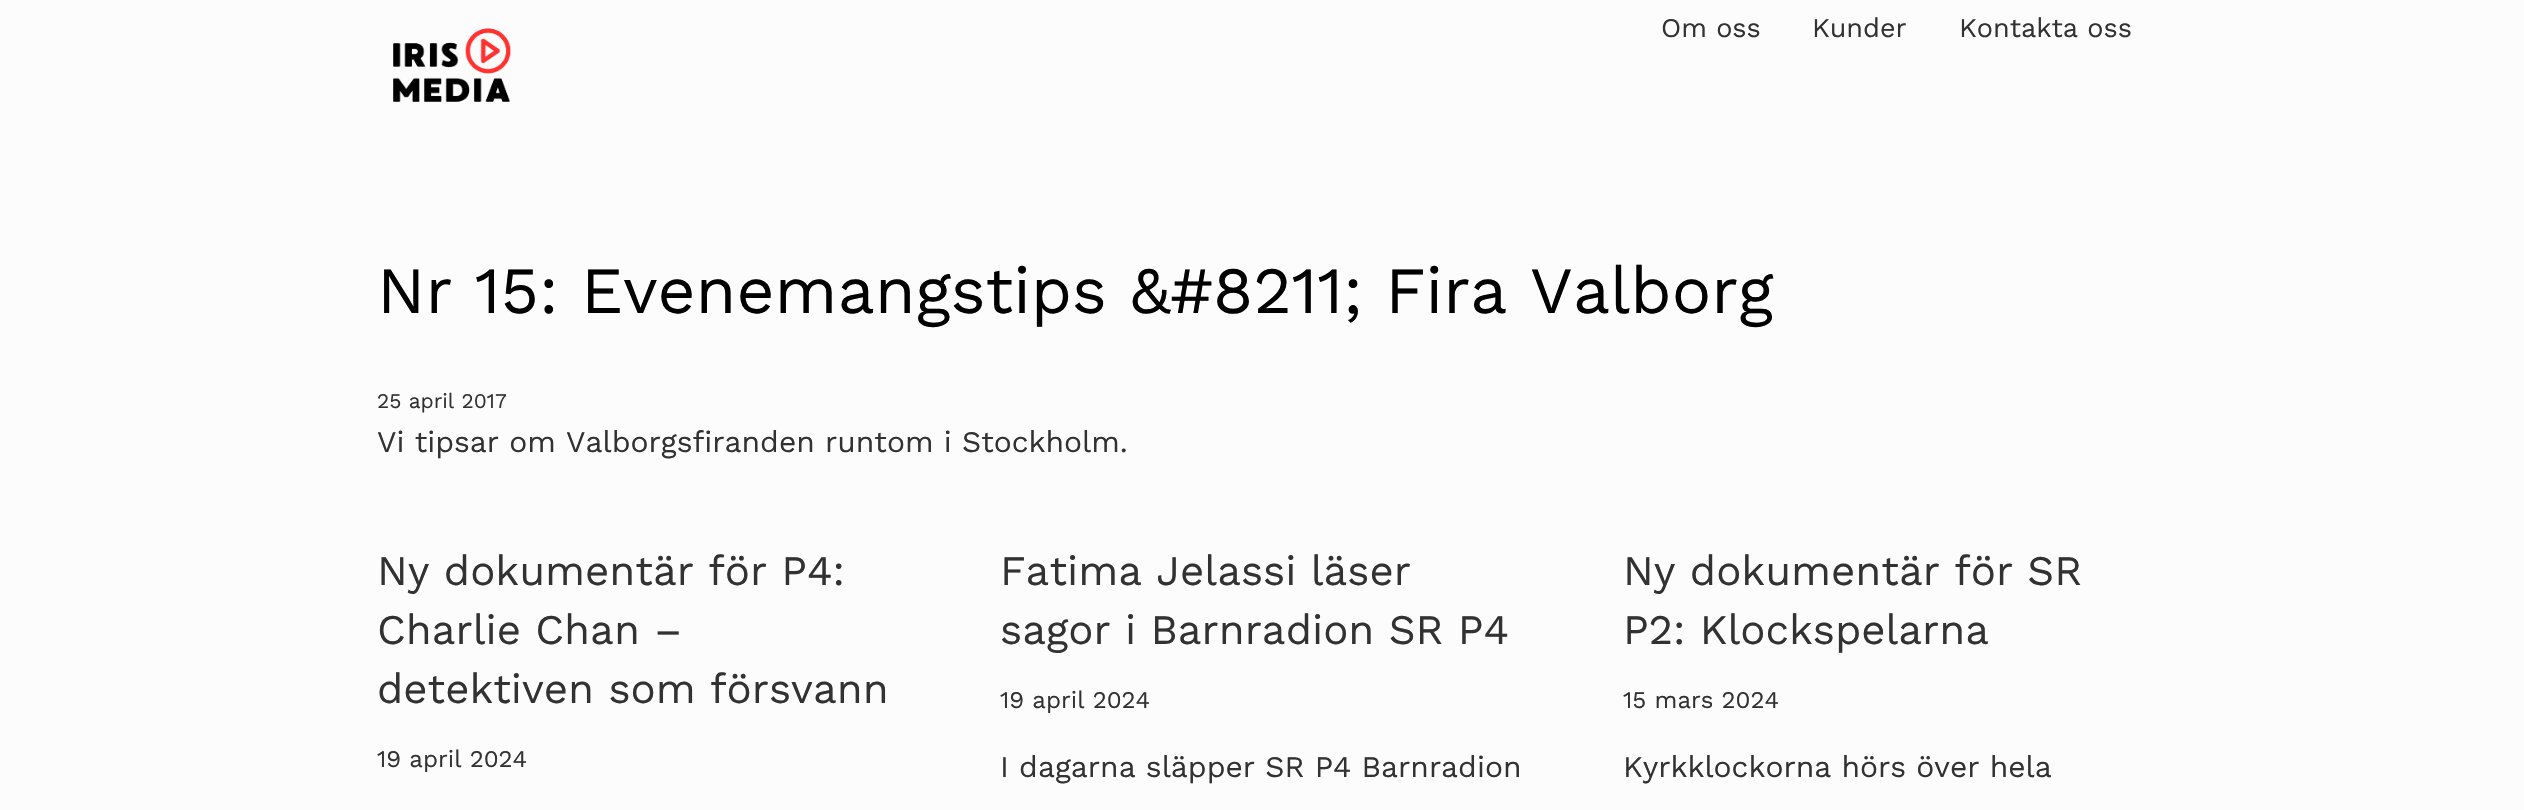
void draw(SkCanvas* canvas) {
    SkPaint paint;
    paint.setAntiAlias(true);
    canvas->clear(0xFFFCFCFC);
    canvas->drawImageRect(SkImages::DeferredFromEncodedData(SkData::MakeFromFileName("img1.png")), SkRect::MakeXYWH(393, 28, 118, 74), SkSamplingOptions());
    SkFont font1(fontMgr->matchFamilyStyle("Work Sans", SkFontStyle::Normal()), 27);
    font1.setSubpixel(true);
    paint.setColor(0xFF323232);
    canvas->drawString("Om oss", 1661, 37, font1, paint);
    canvas->drawString("Kunder", 1812, 37, font1, paint);
    canvas->drawString("Kontakta oss", 1959, 37, font1, paint);
    SkFont font2(fontMgr->matchFamilyStyle("Work Sans", SkFontStyle::Normal()), 66);
    font2.setSubpixel(true);
    paint.setColor(0xFF000000);
    canvas->drawString("Nr 15: Evenemangstips &#8211; Fira Valborg", 377, 313, font2, paint);
    SkFont font3(fontMgr->matchFamilyStyle("Work Sans", SkFontStyle::Normal()), 21);
    font3.setSubpixel(true);
    paint.setColor(0xFF323232);
    canvas->drawString("25 april 2017", 377, 408, font3, paint);
    SkFont font4(fontMgr->matchFamilyStyle("Work Sans", SkFontStyle::Normal()), 30);
    font4.setSubpixel(true);
    canvas->drawString("Vi tipsar om Valborgsfiranden runtom i Stockholm.", 377, 452, font4, paint);
    SkFont font5(fontMgr->matchFamilyStyle("Work Sans", SkFontStyle::Normal()), 42);
    font5.setSubpixel(true);
    canvas->drawString("Ny dokumentär för P4:", 377, 585, font5, paint);
    canvas->drawString("Charlie Chan –", 377, 644, font5, paint);
    canvas->drawString("detektiven som försvann", 377, 703, font5, paint);
    SkFont font6(fontMgr->matchFamilyStyle("Work Sans", SkFontStyle::Normal()), 24);
    font6.setSubpixel(true);
    canvas->drawString("19 april 2024", 377, 767, font6, paint);
    canvas->drawString("Fatima Jelassi läser", 1000, 585, font5, paint);
    canvas->drawString("sagor i Barnradion SR P4", 1000, 644, font5, paint);
    canvas->drawString("19 april 2024", 1000, 708, font6, paint);
    canvas->drawString("I dagarna släpper SR P4 Barnradion", 1000, 777, font4, paint);
    canvas->drawString("Ny dokumentär för SR", 1623, 585, font5, paint);
    canvas->drawString("P2: Klockspelarna", 1623, 644, font5, paint);
    canvas->drawString("15 mars 2024", 1623, 708, font6, paint);
    canvas->drawString("Kyrkklockorna hörs över hela", 1623, 777, font4, paint);
}
